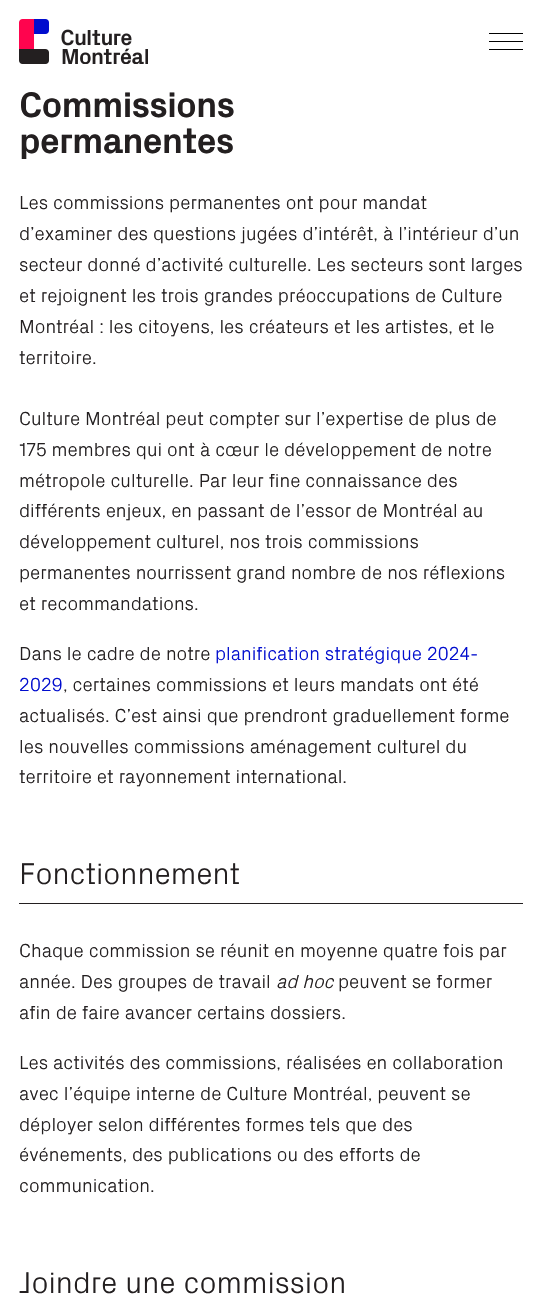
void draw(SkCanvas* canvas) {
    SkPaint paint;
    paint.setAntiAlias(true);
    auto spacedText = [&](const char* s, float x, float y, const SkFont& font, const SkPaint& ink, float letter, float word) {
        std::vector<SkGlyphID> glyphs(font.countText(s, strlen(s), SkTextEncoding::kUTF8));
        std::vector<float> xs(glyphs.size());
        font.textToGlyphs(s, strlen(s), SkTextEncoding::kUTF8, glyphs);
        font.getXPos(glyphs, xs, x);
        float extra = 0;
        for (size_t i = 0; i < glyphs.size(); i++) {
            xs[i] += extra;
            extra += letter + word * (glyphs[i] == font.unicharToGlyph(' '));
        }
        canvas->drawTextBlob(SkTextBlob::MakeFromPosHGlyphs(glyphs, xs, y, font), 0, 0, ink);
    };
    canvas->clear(0xFFFFFFFF);
    canvas->drawImageRect(SkImages::DeferredFromEncodedData(SkData::MakeFromFileName("img1.png")), SkRect::MakeXYWH(19, 19, 129, 45), SkSamplingOptions());
    paint.setColor(0xFF000000);
    canvas->drawRect(SkRect::MakeXYWH(489, 33, 34, 1), paint);
    canvas->drawRect(SkRect::MakeXYWH(489, 41, 34, 1), paint);
    canvas->drawRect(SkRect::MakeXYWH(489, 49, 34, 1), paint);
    SkFont font1(fontMgr->matchFamilyStyle("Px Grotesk", SkFontStyle::Bold()), 36);
    font1.setSubpixel(true);
    paint.setColor(0xFF231F20);
    spacedText("Commissions", 19, 117, font1, paint, -0.9f, 0);
    spacedText("permanentes", 19, 153, font1, paint, -0.9f, 0);
    SkFont font2(fontMgr->matchFamilyStyle("Px Grotesk", SkFontStyle(300, SkFontStyle::kNormal_Width, SkFontStyle::kUpright_Slant)), 19);
    font2.setSubpixel(true);
    canvas->drawString("Les commissions permanentes ont pour mandat", 19, 209, font2, paint);
    canvas->drawString("d’examiner des questions jugées d’intérêt, à l’intérieur d’un", 19, 240, font2, paint);
    canvas->drawString("secteur donné d’activité culturelle. Les secteurs sont larges", 19, 271, font2, paint);
    canvas->drawString("et rejoignent les trois grandes préoccupations de Culture", 19, 302, font2, paint);
    canvas->drawString("Montréal : les citoyens, les créateurs et les artistes, et le", 19, 333, font2, paint);
    canvas->drawString("territoire.", 19, 364, font2, paint);
    canvas->drawString("Culture Montréal peut compter sur l’expertise de plus de", 19, 425, font2, paint);
    canvas->drawString("175 membres qui ont à cœur le développement de notre", 19, 456, font2, paint);
    canvas->drawString("métropole culturelle. Par leur fine connaissance des", 19, 487, font2, paint);
    canvas->drawString("différents enjeux, en passant de l’essor de Montréal au", 19, 517, font2, paint);
    canvas->drawString("développement culturel, nos trois commissions", 19, 548, font2, paint);
    canvas->drawString("permanentes nourrissent grand nombre de nos réflexions", 19, 579, font2, paint);
    canvas->drawString("et recommandations.", 19, 610, font2, paint);
    canvas->drawString("Dans le cadre de notre", 19, 660, font2, paint);
    paint.setColor(0xFF010DCE);
    canvas->drawString("planification stratégique 2024-", 215, 660, font2, paint);
    canvas->drawString("2029", 19, 691, font2, paint);
    paint.setColor(0xFF231F20);
    canvas->drawString(", certaines commissions et leurs mandats ont été", 63, 691, font2, paint);
    canvas->drawString("actualisés. C’est ainsi que prendront graduellement forme", 19, 722, font2, paint);
    canvas->drawString("les nouvelles commissions aménagement culturel du", 19, 753, font2, paint);
    canvas->drawString("territoire et rayonnement international.", 19, 783, font2, paint);
    canvas->drawRect(SkRect::MakeXYWH(19, 903, 504, 1), paint);
    SkFont font3(fontMgr->matchFamilyStyle("Px Grotesk", SkFontStyle(300, SkFontStyle::kNormal_Width, SkFontStyle::kUpright_Slant)), 30.4f);
    font3.setSubpixel(true);
    canvas->drawString("Fonctionnement", 19, 884, font3, paint);
    canvas->drawString("Chaque commission se réunit en moyenne quatre fois par", 19, 957, font2, paint);
    canvas->drawString("année. Des groupes de travail", 19, 988, font2, paint);
    SkFont font4(fontMgr->matchFamilyStyle("Px Grotesk", SkFontStyle(300, SkFontStyle::kNormal_Width, SkFontStyle::kItalic_Slant)), 19);
    font4.setSubpixel(true);
    canvas->drawString("ad hoc", 276, 988, font4, paint);
    canvas->drawString("peuvent se former", 338, 988, font2, paint);
    canvas->drawString("afin de faire avancer certains dossiers.", 19, 1019, font2, paint);
    canvas->drawString("Les activités des commissions, réalisées en collaboration", 19, 1069, font2, paint);
    canvas->drawString("avec l’équipe interne de Culture Montréal, peuvent se", 19, 1100, font2, paint);
    canvas->drawString("déployer selon différentes formes tels que des", 19, 1131, font2, paint);
    canvas->drawString("événements, des publications ou des efforts de", 19, 1161, font2, paint);
    canvas->drawString("communication.", 19, 1192, font2, paint);
    canvas->drawString("Joindre une commission", 19, 1293, font3, paint);
}
